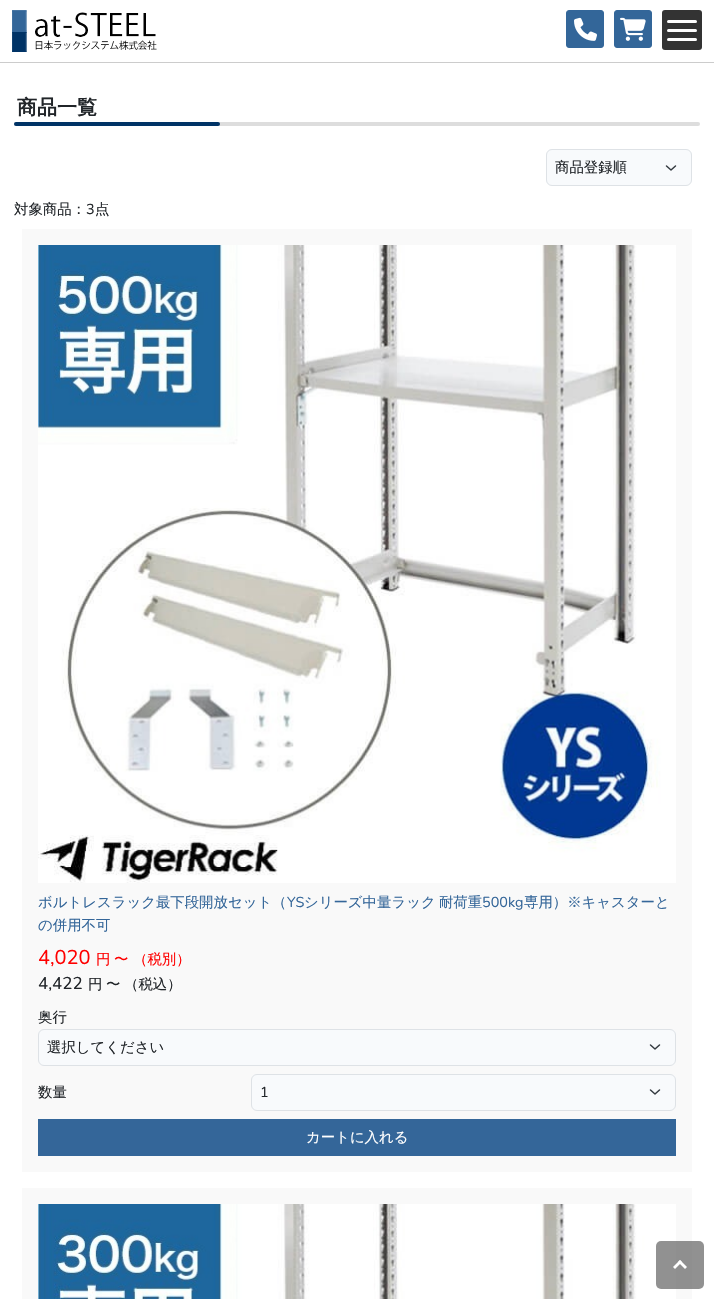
void draw(SkCanvas* canvas) {
    SkPaint paint;
    paint.setAntiAlias(true);
    auto spacedText = [&](const char* s, float x, float y, const SkFont& font, const SkPaint& ink, float letter, float word) {
        std::vector<SkGlyphID> glyphs(font.countText(s, strlen(s), SkTextEncoding::kUTF8));
        std::vector<float> xs(glyphs.size());
        font.textToGlyphs(s, strlen(s), SkTextEncoding::kUTF8, glyphs);
        font.getXPos(glyphs, xs, x);
        float extra = 0;
        for (size_t i = 0; i < glyphs.size(); i++) {
            xs[i] += extra;
            extra += letter + word * (glyphs[i] == font.unicharToGlyph(' '));
        }
        canvas->drawTextBlob(SkTextBlob::MakeFromPosHGlyphs(glyphs, xs, y, font), 0, 0, ink);
    };
    canvas->clear(0xFFFFFFFF);
    paint.setColor(0xFFCCCCCC);
    canvas->drawRect(SkRect::MakeXYWH(0, 62, 714, 1), paint);
    canvas->drawImageRect(SkImages::DeferredFromEncodedData(SkData::MakeFromFileName("img1.png")), SkRect::MakeXYWH(12, 10, 145, 42), SkSamplingOptions());
    paint.setColor(0xFF336699);
    canvas->drawRoundRect(SkRect::MakeXYWH(566.5f, 10.5f, 37, 37), 2.5f, 2.5f, paint);
    paint.setStyle(SkPaint::kStroke_Style);
    paint.setStrokeWidth(1);
    canvas->drawRoundRect(SkRect::MakeXYWH(566.5f, 10.5f, 37, 37), 2.5f, 2.5f, paint);
    canvas->drawImageRect(SkImages::DeferredFromEncodedData(SkData::MakeFromFileName("img2.png")), SkRect::MakeXYWH(574, 17, 23, 24), SkSamplingOptions());
    paint.setStyle(SkPaint::kFill_Style);
    canvas->drawRoundRect(SkRect::MakeXYWH(614.5f, 10.5f, 37, 37), 2.5f, 2.5f, paint);
    paint.setStyle(SkPaint::kStroke_Style);
    canvas->drawRoundRect(SkRect::MakeXYWH(614.5f, 10.5f, 37, 37), 2.5f, 2.5f, paint);
    canvas->drawImageRect(SkImages::DeferredFromEncodedData(SkData::MakeFromFileName("img3.png")), SkRect::MakeXYWH(620, 17, 26, 24), SkSamplingOptions());
    paint.setStyle(SkPaint::kFill_Style);
    paint.setColor(0xFF333333);
    canvas->drawRoundRect(SkRect::MakeXYWH(662, 10, 40, 40), 3, 3, paint);
    paint.setColor(0xFFFFFFFF);
    canvas->drawRoundRect(SkRect::MakeXYWH(667, 20, 30, 3), 1.5f, 1.5f, paint);
    canvas->drawRoundRect(SkRect::MakeXYWH(667, 29, 30, 3), 1.5f, 1.5f, paint);
    canvas->drawRoundRect(SkRect::MakeXYWH(667, 38, 30, 3), 1.5f, 1.5f, paint);
    SkFont font1(fontMgr->matchFamilyStyle("WenQuanYi Zen Hei", SkFontStyle::Bold()), 20);
    font1.setSubpixel(true);
    paint.setColor(0xFF212529);
    canvas->drawString("商品一覧", 17, 114, font1, paint);
    paint.setColor(0xFFDDDDDD);
    canvas->drawRoundRect(SkRect::MakeXYWH(14, 122, 686, 4), 2, 2, paint);
    paint.setColor(0xFF003366);
    canvas->drawRoundRect(SkRect::MakeXYWH(14, 122, 206, 4), 2, 2, paint);
    paint.setColor(0xFFF8FAFC);
    canvas->drawRoundRect(SkRect::MakeXYWH(546, 149, 146, 37), 6, 6, paint);
    paint.setStyle(SkPaint::kStroke_Style);
    paint.setStrokeWidth(1.5f);
    paint.setStrokeCap(SkPaint::kRound_Cap);
    paint.setStrokeJoin(SkPaint::kRound_Join);
    paint.setColor(0xFF343A40);
    canvas->drawPath(SkPathBuilder().moveTo(666.5f, 166).lineTo(671, 170).lineTo(675.5f, 166).detach(), paint);
    paint.setStrokeWidth(1);
    paint.setStrokeCap(SkPaint::kButt_Cap);
    paint.setStrokeJoin(SkPaint::kMiter_Join);
    paint.setColor(0xFFDEE2E6);
    canvas->drawRoundRect(SkRect::MakeXYWH(546.5f, 149.5f, 145, 36), 5.5f, 5.5f, paint);
    SkFont font2(fontMgr->matchFamilyStyle("WenQuanYi Zen Hei", SkFontStyle(500, SkFontStyle::kNormal_Width, SkFontStyle::kUpright_Slant)), 14.4f);
    font2.setSubpixel(true);
    paint.setStyle(SkPaint::kFill_Style);
    paint.setColor(0xFF212529);
    canvas->drawString("商品登録順", 555, 172, font2, paint);
    canvas->drawString("対象商品：", 14, 214, font2, paint);
    SkFont font3(fontMgr->matchFamilyStyle("Nunito", SkFontStyle(200, SkFontStyle::kNormal_Width, SkFontStyle::kUpright_Slant)), 14.4f);
    font3.setSubpixel(true);
    canvas->drawString("3", 86, 214, font3, paint);
    canvas->drawString("点", 95, 214, font2, paint);
    paint.setColor(0xFFF9F9F9);
    canvas->drawRect(SkRect::MakeXYWH(22, 229, 670, 943), paint);
    canvas->drawImageRect(SkImages::DeferredFromEncodedData(SkData::MakeFromFileName("img4.png")), SkRect::MakeXYWH(38, 245, 638, 638), SkSamplingOptions());
    paint.setColor(0xFF346699);
    canvas->drawString("ボルトレスラック最下段開放セット（", 38, 907, font2, paint);
    canvas->drawString("YS", 287, 907, font3, paint);
    spacedText("シリーズ中量ラック 耐荷重", 304, 907, font2, paint, 0, -1);
    canvas->drawString("500kg", 482, 907, font3, paint);
    canvas->drawString("専用）※キャスターと", 524, 907, font2, paint);
    canvas->drawString("の併用不可", 38, 930, font2, paint);
    SkFont font4(fontMgr->matchFamilyStyle("Nunito", SkFontStyle(200, SkFontStyle::kNormal_Width, SkFontStyle::kUpright_Slant)), 20);
    font4.setSubpixel(true);
    paint.setColor(0xFFFF0000);
    canvas->drawString("4,020", 38, 964, font4, paint);
    canvas->drawString("円", 96, 964, font2, paint);
    canvas->drawString("〜", 114, 964, font2, paint);
    canvas->drawString("（税別）", 133, 964, font2, paint);
    SkFont font5(fontMgr->matchFamilyStyle("Nunito", SkFontStyle(200, SkFontStyle::kNormal_Width, SkFontStyle::kUpright_Slant)), 17);
    font5.setSubpixel(true);
    paint.setColor(0xFF212529);
    canvas->drawString("4,422", 38, 989, font5, paint);
    canvas->drawString("円", 88, 989, font2, paint);
    canvas->drawString("〜", 106, 989, font2, paint);
    canvas->drawString("（税込）", 124, 989, font2, paint);
    canvas->drawString("奥行", 38, 1022, font2, paint);
    paint.setColor(0xFFF8FAFC);
    canvas->drawRoundRect(SkRect::MakeXYWH(38, 1029, 638, 37), 6, 6, paint);
    paint.setStyle(SkPaint::kStroke_Style);
    paint.setStrokeWidth(1.5f);
    paint.setStrokeCap(SkPaint::kRound_Cap);
    paint.setStrokeJoin(SkPaint::kRound_Join);
    paint.setColor(0xFF343A40);
    canvas->drawPath(SkPathBuilder().moveTo(650.5f, 1045).lineTo(655, 1049).lineTo(659.5f, 1045).detach(), paint);
    paint.setStrokeWidth(1);
    paint.setStrokeCap(SkPaint::kButt_Cap);
    paint.setStrokeJoin(SkPaint::kMiter_Join);
    paint.setColor(0xFFDEE2E6);
    canvas->drawRoundRect(SkRect::MakeXYWH(38.5f, 1029.5f, 637, 36), 5.5f, 5.5f, paint);
    paint.setStyle(SkPaint::kFill_Style);
    paint.setColor(0xFF212529);
    canvas->drawString("選択してください", 47, 1052, font2, paint);
    canvas->drawString("数量", 38, 1097, font2, paint);
    paint.setColor(0xFFF8FAFC);
    canvas->drawRoundRect(SkRect::MakeXYWH(251, 1074, 425, 37), 6, 6, paint);
    paint.setStyle(SkPaint::kStroke_Style);
    paint.setStrokeWidth(1.5f);
    paint.setStrokeCap(SkPaint::kRound_Cap);
    paint.setStrokeJoin(SkPaint::kRound_Join);
    paint.setColor(0xFF343A40);
    canvas->drawPath(SkPathBuilder().moveTo(650.5f, 1090).lineTo(655, 1094).lineTo(659.5f, 1090).detach(), paint);
    paint.setStrokeWidth(1);
    paint.setStrokeCap(SkPaint::kButt_Cap);
    paint.setStrokeJoin(SkPaint::kMiter_Join);
    paint.setColor(0xFFDEE2E6);
    canvas->drawRoundRect(SkRect::MakeXYWH(251.5f, 1074.5f, 424, 36), 5.5f, 5.5f, paint);
    paint.setStyle(SkPaint::kFill_Style);
    paint.setColor(0xFF212529);
    canvas->drawString("1", 260, 1097, font3, paint);
    paint.setColor(0xFF346699);
    canvas->drawRect(SkRect::MakeXYWH(38, 1119, 638, 37), paint);
    paint.setColor(0xFFFFFFFF);
    canvas->drawString("カートに入れる", 306, 1142, font2, paint);
    paint.setColor(0xFFF9F9F9);
    canvas->drawRect(SkRect::MakeXYWH(22, 1188, 670, 111), paint);
    canvas->drawImageRect(SkImages::DeferredFromEncodedData(SkData::MakeFromFileName("img5.png")), SkRect::MakeXYWH(38, 1204, 638, 95), SkSamplingOptions());
    paint.setColor(0xB3636363);
    canvas->drawRoundRect(SkRect::MakeXYWH(656, 1241, 48, 48), 5, 5, paint);
    paint.setColor(0xFFFFFFFF);
    canvas->drawPath(SkPathBuilder().moveTo(673, 1267).lineTo(680, 1260).lineTo(682, 1262).lineTo(675, 1269).close().detach(), paint);
    canvas->drawPath(SkPathBuilder().moveTo(678, 1262).lineTo(680, 1260).lineTo(687, 1267).lineTo(685, 1269).close().detach(), paint);
}
